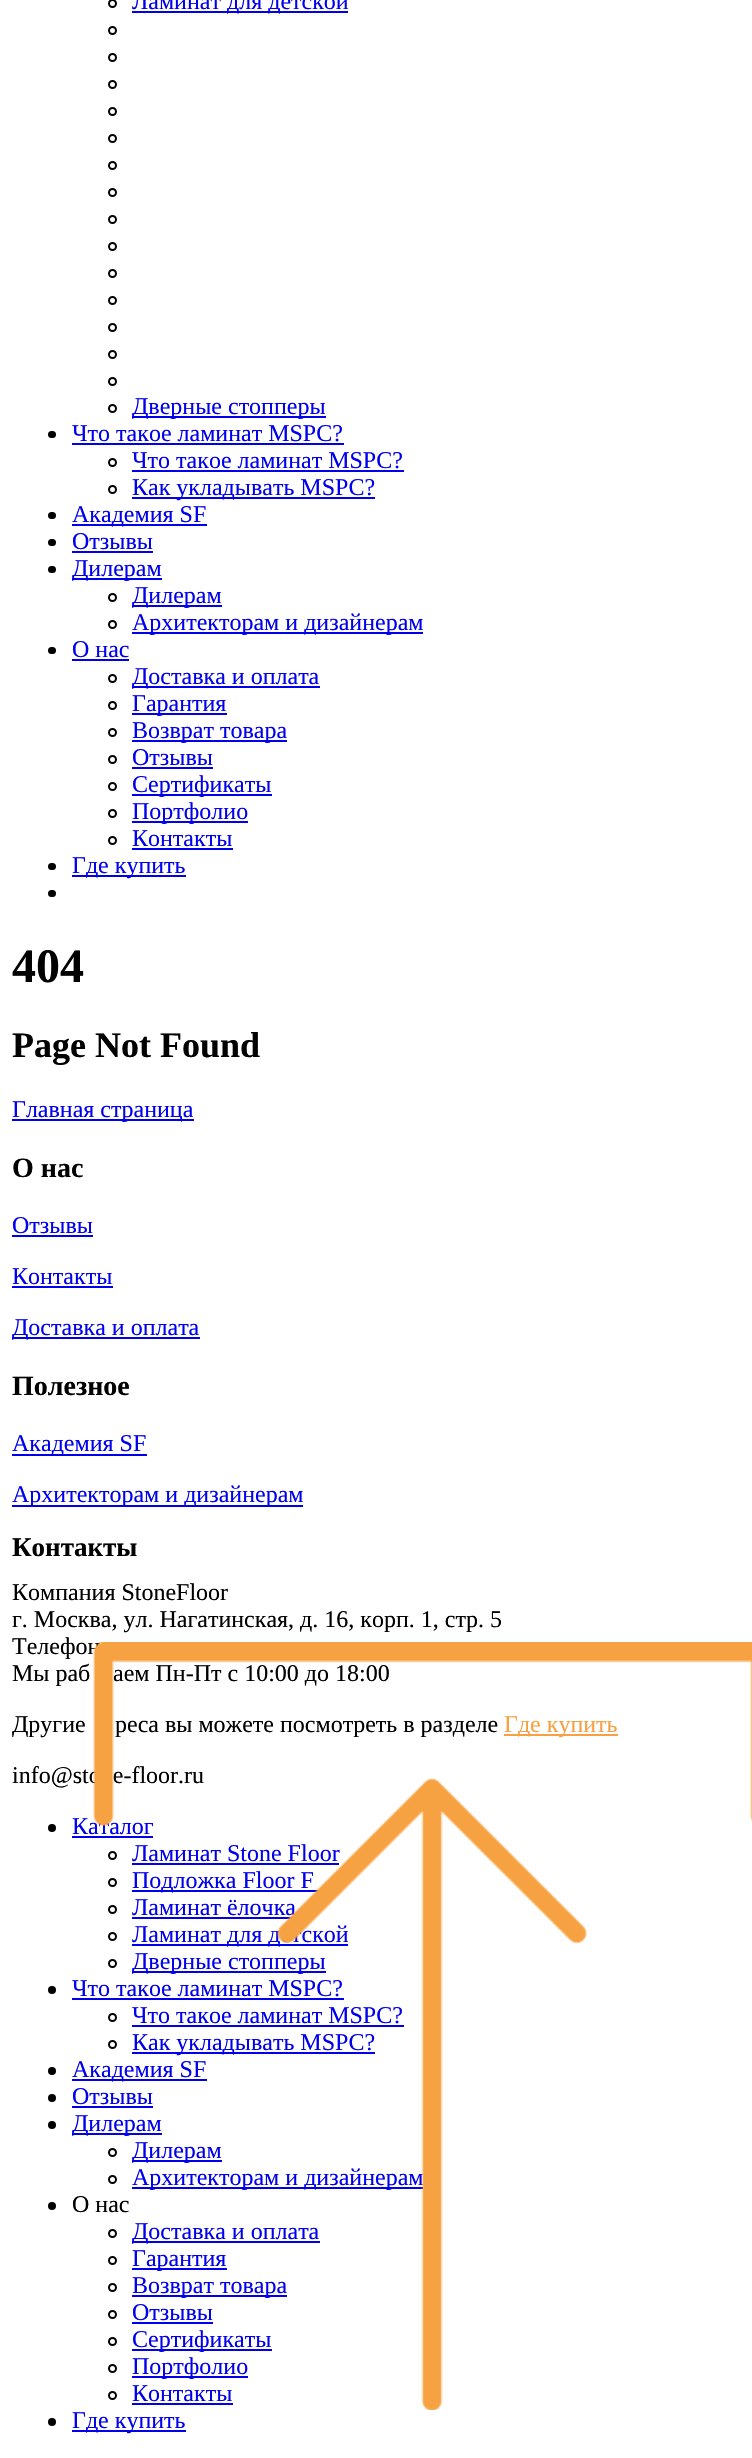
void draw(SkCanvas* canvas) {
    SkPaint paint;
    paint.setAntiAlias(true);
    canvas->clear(0xFFFFFFFF);
    paint.setStyle(SkPaint::kStroke_Style);
    paint.setStrokeWidth(2);
    paint.setColor(0xFF000000);
    canvas->drawCircle(112.5f, 3.5f, 3.5f, paint);
    paint.setStyle(SkPaint::kFill_Style);
    paint.setColor(0xFF0000EE);
    canvas->drawRect(SkRect::MakeXYWH(132, 11, 216, 2), paint);
    SkFont font1(fontMgr->matchFamilyStyle("Liberation Serif", SkFontStyle::Normal()), 24);
    font1.setSubpixel(true);
    canvas->drawString("Ламинат для детской", 132, 9, font1, paint);
    paint.setStyle(SkPaint::kStroke_Style);
    paint.setColor(0xFF000000);
    canvas->drawCircle(112.5f, 30.5f, 3.5f, paint);
    canvas->drawCircle(112.5f, 57.5f, 3.5f, paint);
    canvas->drawCircle(112.5f, 84.5f, 3.5f, paint);
    canvas->drawCircle(112.5f, 111.5f, 3.5f, paint);
    canvas->drawCircle(112.5f, 138.5f, 3.5f, paint);
    canvas->drawCircle(112.5f, 165.5f, 3.5f, paint);
    canvas->drawCircle(112.5f, 192.5f, 3.5f, paint);
    canvas->drawCircle(112.5f, 219.5f, 3.5f, paint);
    canvas->drawCircle(112.5f, 246.5f, 3.5f, paint);
    canvas->drawCircle(112.5f, 273.5f, 3.5f, paint);
    canvas->drawCircle(112.5f, 300.5f, 3.5f, paint);
    canvas->drawCircle(112.5f, 327.5f, 3.5f, paint);
    canvas->drawCircle(112.5f, 354.5f, 3.5f, paint);
    canvas->drawCircle(112.5f, 381.5f, 3.5f, paint);
    canvas->drawCircle(112.5f, 408.5f, 3.5f, paint);
    paint.setStyle(SkPaint::kFill_Style);
    paint.setColor(0xFF0000EE);
    canvas->drawRect(SkRect::MakeXYWH(132, 416, 194, 2), paint);
    canvas->drawString("Дверные стопперы", 132, 414, font1, paint);
    paint.setColor(0xFF000000);
    canvas->drawRoundRect(SkRect::MakeXYWH(48, 431, 8, 7), 3.5f, 3.5f, paint);
    paint.setColor(0xFF0000EE);
    canvas->drawString("Что такое ламинат MSPC?", 72, 441, font1, paint);
    canvas->drawRect(SkRect::MakeXYWH(72, 443, 272, 2), paint);
    paint.setStyle(SkPaint::kStroke_Style);
    paint.setColor(0xFF000000);
    canvas->drawCircle(112.5f, 462.5f, 3.5f, paint);
    paint.setStyle(SkPaint::kFill_Style);
    paint.setColor(0xFF0000EE);
    canvas->drawString("Что такое ламинат MSPC?", 132, 468, font1, paint);
    canvas->drawRect(SkRect::MakeXYWH(132, 470, 272, 2), paint);
    paint.setStyle(SkPaint::kStroke_Style);
    paint.setColor(0xFF000000);
    canvas->drawCircle(112.5f, 489.5f, 3.5f, paint);
    paint.setStyle(SkPaint::kFill_Style);
    paint.setColor(0xFF0000EE);
    canvas->drawRect(SkRect::MakeXYWH(132, 497, 243, 2), paint);
    canvas->drawString("Как укладывать MSPC?", 132, 495, font1, paint);
    paint.setColor(0xFF000000);
    canvas->drawRoundRect(SkRect::MakeXYWH(48, 512, 8, 7), 3.5f, 3.5f, paint);
    paint.setColor(0xFF0000EE);
    canvas->drawRect(SkRect::MakeXYWH(72, 524, 135, 2), paint);
    canvas->drawString("Академия SF", 72, 522, font1, paint);
    paint.setColor(0xFF000000);
    canvas->drawRoundRect(SkRect::MakeXYWH(48, 539, 8, 7), 3.5f, 3.5f, paint);
    paint.setColor(0xFF0000EE);
    canvas->drawString("Отзывы", 72, 549, font1, paint);
    canvas->drawRect(SkRect::MakeXYWH(72, 551, 81, 2), paint);
    paint.setColor(0xFF000000);
    canvas->drawRoundRect(SkRect::MakeXYWH(48, 566, 8, 7), 3.5f, 3.5f, paint);
    paint.setColor(0xFF0000EE);
    canvas->drawRect(SkRect::MakeXYWH(72, 578, 90, 2), paint);
    canvas->drawString("Дилерам", 72, 576, font1, paint);
    paint.setStyle(SkPaint::kStroke_Style);
    paint.setColor(0xFF000000);
    canvas->drawCircle(112.5f, 597.5f, 3.5f, paint);
    paint.setStyle(SkPaint::kFill_Style);
    paint.setColor(0xFF0000EE);
    canvas->drawRect(SkRect::MakeXYWH(132, 605, 90, 2), paint);
    canvas->drawString("Дилерам", 132, 603, font1, paint);
    paint.setStyle(SkPaint::kStroke_Style);
    paint.setColor(0xFF000000);
    canvas->drawCircle(112.5f, 624.5f, 3.5f, paint);
    paint.setStyle(SkPaint::kFill_Style);
    paint.setColor(0xFF0000EE);
    canvas->drawRect(SkRect::MakeXYWH(132, 632, 291, 2), paint);
    canvas->drawString("Архитекторам и дизайнерам", 132, 630, font1, paint);
    paint.setColor(0xFF000000);
    canvas->drawRoundRect(SkRect::MakeXYWH(48, 647, 8, 7), 3.5f, 3.5f, paint);
    paint.setColor(0xFF0000EE);
    canvas->drawString("О нас", 72, 657, font1, paint);
    canvas->drawRect(SkRect::MakeXYWH(72, 659, 57, 2), paint);
    paint.setStyle(SkPaint::kStroke_Style);
    paint.setColor(0xFF000000);
    canvas->drawCircle(112.5f, 678.5f, 3.5f, paint);
    paint.setStyle(SkPaint::kFill_Style);
    paint.setColor(0xFF0000EE);
    canvas->drawRect(SkRect::MakeXYWH(132, 686, 188, 2), paint);
    canvas->drawString("Доставка и оплата", 132, 684, font1, paint);
    paint.setStyle(SkPaint::kStroke_Style);
    paint.setColor(0xFF000000);
    canvas->drawCircle(112.5f, 705.5f, 3.5f, paint);
    paint.setStyle(SkPaint::kFill_Style);
    paint.setColor(0xFF0000EE);
    canvas->drawRect(SkRect::MakeXYWH(132, 713, 95, 2), paint);
    canvas->drawString("Гарантия", 132, 711, font1, paint);
    paint.setStyle(SkPaint::kStroke_Style);
    paint.setColor(0xFF000000);
    canvas->drawCircle(112.5f, 732.5f, 3.5f, paint);
    paint.setStyle(SkPaint::kFill_Style);
    paint.setColor(0xFF0000EE);
    canvas->drawRect(SkRect::MakeXYWH(132, 740, 155, 2), paint);
    canvas->drawString("Возврат товара", 132, 738, font1, paint);
    paint.setStyle(SkPaint::kStroke_Style);
    paint.setColor(0xFF000000);
    canvas->drawCircle(112.5f, 759.5f, 3.5f, paint);
    paint.setStyle(SkPaint::kFill_Style);
    paint.setColor(0xFF0000EE);
    canvas->drawString("Отзывы", 132, 765, font1, paint);
    canvas->drawRect(SkRect::MakeXYWH(132, 767, 81, 2), paint);
    paint.setStyle(SkPaint::kStroke_Style);
    paint.setColor(0xFF000000);
    canvas->drawCircle(112.5f, 786.5f, 3.5f, paint);
    paint.setStyle(SkPaint::kFill_Style);
    paint.setColor(0xFF0000EE);
    canvas->drawRect(SkRect::MakeXYWH(132, 794, 140, 2), paint);
    canvas->drawString("Сертификаты", 132, 792, font1, paint);
    paint.setStyle(SkPaint::kStroke_Style);
    paint.setColor(0xFF000000);
    canvas->drawCircle(112.5f, 813.5f, 3.5f, paint);
    paint.setStyle(SkPaint::kFill_Style);
    paint.setColor(0xFF0000EE);
    canvas->drawRect(SkRect::MakeXYWH(132, 821, 116, 2), paint);
    canvas->drawString("Портфолио", 132, 819, font1, paint);
    paint.setStyle(SkPaint::kStroke_Style);
    paint.setColor(0xFF000000);
    canvas->drawCircle(112.5f, 840.5f, 3.5f, paint);
    paint.setStyle(SkPaint::kFill_Style);
    paint.setColor(0xFF0000EE);
    canvas->drawString("Контакты", 132, 846, font1, paint);
    canvas->drawRect(SkRect::MakeXYWH(132, 848, 101, 2), paint);
    paint.setColor(0xFF000000);
    canvas->drawRoundRect(SkRect::MakeXYWH(48, 863, 8, 7), 3.5f, 3.5f, paint);
    paint.setColor(0xFF0000EE);
    canvas->drawRect(SkRect::MakeXYWH(72, 875, 114, 2), paint);
    canvas->drawString("Где купить", 72, 873, font1, paint);
    paint.setColor(0xFF000000);
    canvas->drawRoundRect(SkRect::MakeXYWH(48, 890, 8, 7), 3.5f, 3.5f, paint);
    SkFont font2(fontMgr->matchFamilyStyle("Liberation Serif", SkFontStyle::Bold()), 48);
    font2.setSubpixel(true);
    canvas->drawString("404", 12, 982, font2, paint);
    SkFont font3(fontMgr->matchFamilyStyle("Liberation Serif", SkFontStyle::Bold()), 36);
    font3.setSubpixel(true);
    canvas->drawString("Page Not Found", 12, 1057, font3, paint);
    paint.setColor(0xFF0000EE);
    canvas->drawRect(SkRect::MakeXYWH(12, 1119, 182, 2), paint);
    canvas->drawString("Главная страница", 12, 1117, font1, paint);
    SkFont font4(fontMgr->matchFamilyStyle("Liberation Serif", SkFontStyle::Bold()), 28);
    font4.setSubpixel(true);
    paint.setColor(0xFF000000);
    canvas->drawString("О нас", 12, 1177, font4, paint);
    paint.setColor(0xFF0000EE);
    canvas->drawString("Отзывы", 12, 1233, font1, paint);
    canvas->drawRect(SkRect::MakeXYWH(12, 1235, 81, 2), paint);
    canvas->drawString("Контакты", 12, 1284, font1, paint);
    canvas->drawRect(SkRect::MakeXYWH(12, 1286, 101, 2), paint);
    canvas->drawRect(SkRect::MakeXYWH(12, 1337, 188, 2), paint);
    canvas->drawString("Доставка и оплата", 12, 1335, font1, paint);
    paint.setColor(0xFF000000);
    canvas->drawString("Полезное", 12, 1395, font4, paint);
    paint.setColor(0xFF0000EE);
    canvas->drawRect(SkRect::MakeXYWH(12, 1454, 135, 2), paint);
    canvas->drawString("Академия SF", 12, 1451, font1, paint);
    canvas->drawRect(SkRect::MakeXYWH(12, 1505, 291, 2), paint);
    canvas->drawString("Архитекторам и дизайнерам", 12, 1502, font1, paint);
    SkFont font5(fontMgr->matchFamilyStyle("Liberation Serif", SkFontStyle::Bold()), 27);
    font5.setSubpixel(true);
    paint.setColor(0xFF000000);
    canvas->drawString("Контакты", 12, 1556, font5, paint);
    canvas->drawString("Компания StoneFloor", 12, 1600, font1, paint);
    canvas->drawString("г. Москва, ул. Нагатинская, д. 16, корп. 1, стр. 5", 12, 1627, font1, paint);
    canvas->drawString("Телефон", 12, 1654, font1, paint);
    canvas->drawString("Мы раб", 12, 1681, font1, paint);
    canvas->drawString("аем Пн-Пт с 10:00 до 18:00", 113, 1681, font1, paint);
    canvas->drawString("Другие", 12, 1732, font1, paint);
    canvas->drawString("реса вы можете посмотреть в разделе", 115, 1732, font1, paint);
    paint.setColor(0xFFF6A144);
    canvas->drawRect(SkRect::MakeXYWH(504, 1734, 114, 2), paint);
    canvas->drawString("Где купить", 504, 1732, font1, paint);
    paint.setColor(0xFF000000);
    canvas->drawString("info@stone-floor.ru", 12, 1783, font1, paint);
    paint.setColor(0xFF0000EE);
    canvas->drawString("Каталог", 72, 1834, font1, paint);
    canvas->drawRect(SkRect::MakeXYWH(72, 1836, 81, 2), paint);
    paint.setStyle(SkPaint::kStroke_Style);
    paint.setColor(0xFF000000);
    canvas->drawCircle(112.5f, 1855.5f, 3.5f, paint);
    paint.setStyle(SkPaint::kFill_Style);
    paint.setColor(0xFF0000EE);
    canvas->drawString("Ламинат Stone Floor", 132, 1861, font1, paint);
    canvas->drawRect(SkRect::MakeXYWH(132, 1863, 207, 2), paint);
    paint.setStyle(SkPaint::kStroke_Style);
    paint.setColor(0xFF000000);
    canvas->drawCircle(112.5f, 1882.5f, 3.5f, paint);
    paint.setStyle(SkPaint::kFill_Style);
    paint.setColor(0xFF0000EE);
    canvas->drawRect(SkRect::MakeXYWH(132, 1890, 209, 2), paint);
    canvas->drawString("Подложка Floor F", 132, 1888, font1, paint);
    paint.setStyle(SkPaint::kStroke_Style);
    paint.setColor(0xFF000000);
    canvas->drawCircle(112.5f, 1909.5f, 3.5f, paint);
    paint.setStyle(SkPaint::kFill_Style);
    paint.setColor(0xFF0000EE);
    canvas->drawString("Ламинат ёлочка", 132, 1915, font1, paint);
    canvas->drawRect(SkRect::MakeXYWH(132, 1917, 164, 2), paint);
    paint.setStyle(SkPaint::kStroke_Style);
    paint.setColor(0xFF000000);
    canvas->drawCircle(112.5f, 1936.5f, 3.5f, paint);
    paint.setStyle(SkPaint::kFill_Style);
    paint.setColor(0xFF0000EE);
    canvas->drawRect(SkRect::MakeXYWH(132, 1944, 216, 2), paint);
    canvas->drawString("Ламинат для детской", 132, 1942, font1, paint);
    paint.setStyle(SkPaint::kStroke_Style);
    paint.setColor(0xFF000000);
    canvas->drawCircle(112.5f, 1963.5f, 3.5f, paint);
    paint.setStyle(SkPaint::kFill_Style);
    paint.setColor(0xFF0000EE);
    canvas->drawRect(SkRect::MakeXYWH(132, 1971, 194, 2), paint);
    canvas->drawString("Дверные стопперы", 132, 1969, font1, paint);
    canvas->drawString("Что такое ламинат MSPC?", 72, 1996, font1, paint);
    canvas->drawRect(SkRect::MakeXYWH(72, 1998, 272, 2), paint);
    paint.setStyle(SkPaint::kStroke_Style);
    paint.setColor(0xFF000000);
    canvas->drawCircle(112.5f, 2017.5f, 3.5f, paint);
    paint.setStyle(SkPaint::kFill_Style);
    paint.setColor(0xFF0000EE);
    canvas->drawString("Что такое ламинат MSPC?", 132, 2023, font1, paint);
    canvas->drawRect(SkRect::MakeXYWH(132, 2025, 272, 2), paint);
    paint.setStyle(SkPaint::kStroke_Style);
    paint.setColor(0xFF000000);
    canvas->drawCircle(112.5f, 2044.5f, 3.5f, paint);
    paint.setStyle(SkPaint::kFill_Style);
    paint.setColor(0xFF0000EE);
    canvas->drawRect(SkRect::MakeXYWH(132, 2052, 243, 2), paint);
    canvas->drawString("Как укладывать MSPC?", 132, 2050, font1, paint);
    canvas->drawRect(SkRect::MakeXYWH(72, 2079, 135, 2), paint);
    canvas->drawString("Академия SF", 72, 2077, font1, paint);
    canvas->drawString("Отзывы", 72, 2104, font1, paint);
    canvas->drawRect(SkRect::MakeXYWH(72, 2106, 81, 2), paint);
    canvas->drawRect(SkRect::MakeXYWH(72, 2133, 90, 2), paint);
    canvas->drawString("Дилерам", 72, 2131, font1, paint);
    paint.setStyle(SkPaint::kStroke_Style);
    paint.setColor(0xFF000000);
    canvas->drawCircle(112.5f, 2152.5f, 3.5f, paint);
    paint.setStyle(SkPaint::kFill_Style);
    paint.setColor(0xFF0000EE);
    canvas->drawRect(SkRect::MakeXYWH(132, 2160, 90, 2), paint);
    canvas->drawString("Дилерам", 132, 2158, font1, paint);
    paint.setStyle(SkPaint::kStroke_Style);
    paint.setColor(0xFF000000);
    canvas->drawCircle(112.5f, 2179.5f, 3.5f, paint);
    paint.setStyle(SkPaint::kFill_Style);
    paint.setColor(0xFF0000EE);
    canvas->drawRect(SkRect::MakeXYWH(132, 2187, 291, 2), paint);
    canvas->drawString("Архитекторам и дизайнерам", 132, 2185, font1, paint);
    paint.setColor(0xFF000000);
    canvas->drawString("О нас", 72, 2212, font1, paint);
    paint.setStyle(SkPaint::kStroke_Style);
    canvas->drawCircle(112.5f, 2233.5f, 3.5f, paint);
    paint.setStyle(SkPaint::kFill_Style);
    paint.setColor(0xFF0000EE);
    canvas->drawRect(SkRect::MakeXYWH(132, 2241, 188, 2), paint);
    canvas->drawString("Доставка и оплата", 132, 2239, font1, paint);
    paint.setStyle(SkPaint::kStroke_Style);
    paint.setColor(0xFF000000);
    canvas->drawCircle(112.5f, 2260.5f, 3.5f, paint);
    paint.setStyle(SkPaint::kFill_Style);
    paint.setColor(0xFF0000EE);
    canvas->drawRect(SkRect::MakeXYWH(132, 2268, 95, 2), paint);
    canvas->drawString("Гарантия", 132, 2266, font1, paint);
    paint.setStyle(SkPaint::kStroke_Style);
    paint.setColor(0xFF000000);
    canvas->drawCircle(112.5f, 2287.5f, 3.5f, paint);
    paint.setStyle(SkPaint::kFill_Style);
    paint.setColor(0xFF0000EE);
    canvas->drawRect(SkRect::MakeXYWH(132, 2295, 155, 2), paint);
    canvas->drawString("Возврат товара", 132, 2293, font1, paint);
    paint.setStyle(SkPaint::kStroke_Style);
    paint.setColor(0xFF000000);
    canvas->drawCircle(112.5f, 2314.5f, 3.5f, paint);
    paint.setStyle(SkPaint::kFill_Style);
    paint.setColor(0xFF0000EE);
    canvas->drawString("Отзывы", 132, 2320, font1, paint);
    canvas->drawRect(SkRect::MakeXYWH(132, 2322, 81, 2), paint);
    paint.setStyle(SkPaint::kStroke_Style);
    paint.setColor(0xFF000000);
    canvas->drawCircle(112.5f, 2341.5f, 3.5f, paint);
    paint.setStyle(SkPaint::kFill_Style);
    paint.setColor(0xFF0000EE);
    canvas->drawRect(SkRect::MakeXYWH(132, 2349, 140, 2), paint);
    canvas->drawString("Сертификаты", 132, 2347, font1, paint);
    paint.setStyle(SkPaint::kStroke_Style);
    paint.setColor(0xFF000000);
    canvas->drawCircle(112.5f, 2368.5f, 3.5f, paint);
    paint.setStyle(SkPaint::kFill_Style);
    paint.setColor(0xFF0000EE);
    canvas->drawRect(SkRect::MakeXYWH(132, 2376, 116, 2), paint);
    canvas->drawString("Портфолио", 132, 2374, font1, paint);
    paint.setStyle(SkPaint::kStroke_Style);
    paint.setColor(0xFF000000);
    canvas->drawCircle(112.5f, 2395.5f, 3.5f, paint);
    paint.setStyle(SkPaint::kFill_Style);
    paint.setColor(0xFF0000EE);
    canvas->drawString("Контакты", 132, 2401, font1, paint);
    canvas->drawRect(SkRect::MakeXYWH(132, 2403, 101, 2), paint);
    canvas->drawImageRect(SkImages::DeferredFromEncodedData(SkData::MakeFromFileName("img1.png")), SkRect::MakeXYWH(92, 1642, 660, 768), SkSamplingOptions());
    paint.setColor(0xFF000000);
    canvas->drawCircle(52, 1828, 4, paint);
    canvas->drawCircle(52, 1990, 4, paint);
    canvas->drawCircle(52, 2071, 4, paint);
    canvas->drawCircle(52, 2098, 4, paint);
    canvas->drawCircle(52, 2125, 4, paint);
    canvas->drawCircle(52, 2206, 4, paint);
    canvas->drawCircle(52, 2422, 4, paint);
    paint.setColor(0xFF0000EE);
    canvas->drawRect(SkRect::MakeXYWH(72, 2430, 114, 2), paint);
    canvas->drawString("Где купить", 72, 2428, font1, paint);
}
